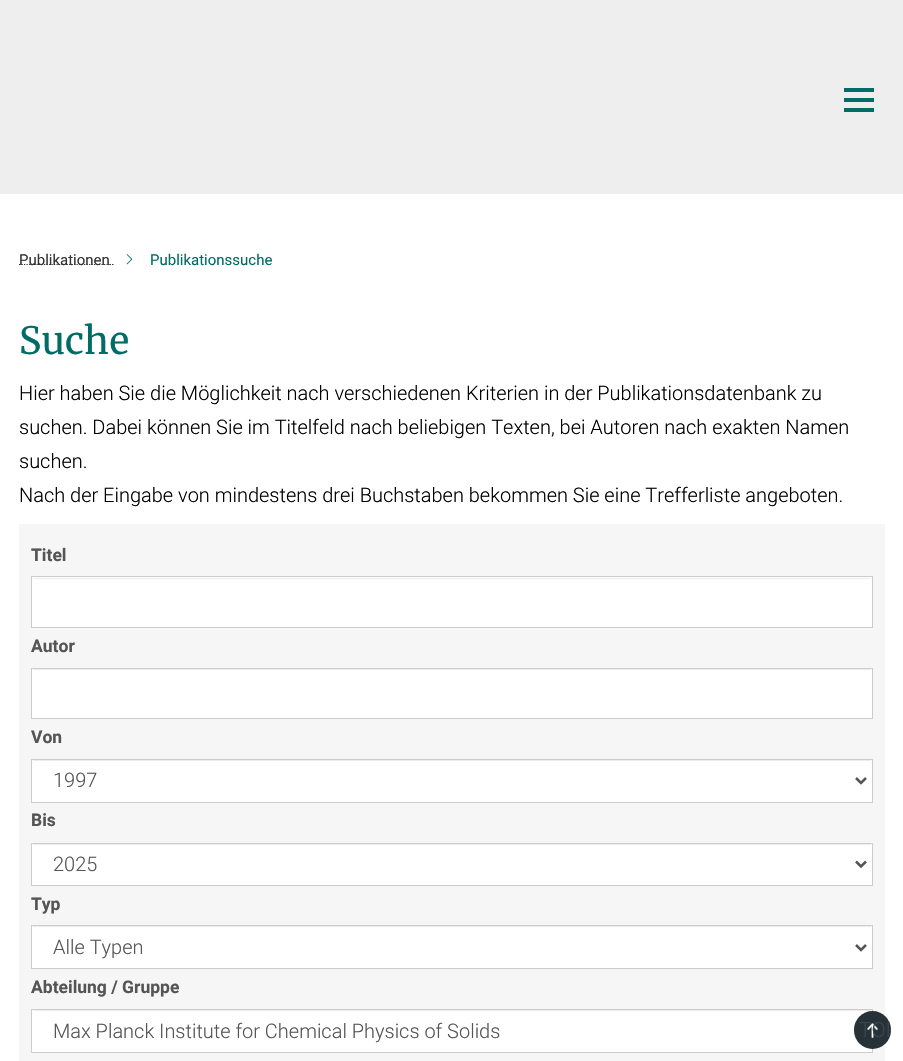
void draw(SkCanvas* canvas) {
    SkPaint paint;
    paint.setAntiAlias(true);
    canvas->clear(0xFFFFFFFF);
    paint.setColor(0xFFEEEEEE);
    canvas->drawRect(SkRect::MakeXYWH(0, 0, 903, 194), paint);
    paint.setColor(0xFF006C66);
    canvas->drawRect(SkRect::MakeXYWH(844, 88, 30, 4), paint);
    canvas->drawRect(SkRect::MakeXYWH(844, 98, 30, 4), paint);
    canvas->drawRect(SkRect::MakeXYWH(844, 108, 30, 4), paint);
    paint.setStyle(SkPaint::kStroke_Style);
    paint.setStrokeWidth(1.2f);
    paint.setColor(0xFF333333);
    paint.setPathEffect(SkDashPathEffect::Make({{1.25f, 1.25f}}, 0));
    canvas->drawPath(SkPathBuilder().moveTo(19, 264.5f).lineTo(109.5f, 264.5f).detach(), paint);
    paint.setPathEffect(nullptr);
    SkFont font1(fontMgr->matchFamilyStyle("Roboto", SkFontStyle::Normal()), 15);
    font1.setSubpixel(true);
    paint.setStyle(SkPaint::kFill_Style);
    canvas->drawString("Publikationen", 19, 265, font1, paint);
    paint.setStyle(SkPaint::kStroke_Style);
    canvas->drawPath(SkPathBuilder().moveTo(109.5f, 264.5f).lineTo(111, 264.5f).moveTo(112, 264.5f).lineTo(113.5f, 264.5f).detach(), paint);
    canvas->drawImageRect(SkImages::DeferredFromEncodedData(SkData::MakeFromFileName("img1.png")), SkRect::MakeXYWH(126, 254, 7, 11), SkSamplingOptions());
    paint.setStyle(SkPaint::kFill_Style);
    paint.setColor(0xFF006C66);
    canvas->drawString("Publikationssuche", 150, 265, font1, paint);
    SkFont font2(fontMgr->matchFamilyStyle("Merriweather", SkFontStyle::Normal()), 37.5f);
    font2.setSubpixel(true);
    canvas->drawString("Suche", 19, 354, font2, paint);
    SkFont font3(fontMgr->matchFamilyStyle("Roboto", SkFontStyle(300, SkFontStyle::kNormal_Width, SkFontStyle::kUpright_Slant)), 20);
    font3.setSubpixel(true);
    paint.setColor(0xFF000000);
    canvas->drawString("Hier haben Sie die Möglichkeit nach verschiedenen Kriterien in der Publikationsdatenbank zu", 19, 400, font3, paint);
    canvas->drawString("suchen. Dabei können Sie im Titelfeld nach beliebigen Texten, bei Autoren nach exakten Namen", 19, 434, font3, paint);
    canvas->drawString("suchen.", 19, 468, font3, paint);
    canvas->drawString("Nach der Eingabe von mindestens drei Buchstaben bekommen Sie eine Trefferliste angeboten.", 19, 502, font3, paint);
    paint.setColor(0xFFF6F6F6);
    canvas->drawRect(SkRect::MakeXYWH(19, 524, 866, 537), paint);
    SkFont font4(fontMgr->matchFamilyStyle("Roboto", SkFontStyle::Bold()), 17.5f);
    font4.setSubpixel(true);
    paint.setColor(0xFF555555);
    canvas->drawString("Titel", 31, 561, font4, paint);
    paint.setColor(0xFFFFFFFF);
    canvas->drawRect(SkRect::MakeXYWH(32, 577, 840, 50), paint);
    paint.setColor(0xFFECECEC);
    canvas->drawRect(SkRect::MakeXYWH(33, 578, 838, 1), paint);
    paint.setStyle(SkPaint::kStroke_Style);
    paint.setStrokeWidth(1);
    paint.setColor(0xFFCCCCCC);
    canvas->drawRect(SkRect::MakeXYWH(31.5f, 576.5f, 841, 51), paint);
    paint.setStyle(SkPaint::kFill_Style);
    paint.setColor(0xFF555555);
    canvas->drawString("Autor", 31, 652, font4, paint);
    paint.setColor(0xFFFFFFFF);
    canvas->drawRect(SkRect::MakeXYWH(32, 669, 840, 49), paint);
    paint.setColor(0xFFECECEC);
    canvas->drawRect(SkRect::MakeXYWH(33, 669, 838, 1), paint);
    paint.setStyle(SkPaint::kStroke_Style);
    paint.setColor(0xFFCCCCCC);
    canvas->drawRect(SkRect::MakeXYWH(31.5f, 668.5f, 841, 50), paint);
    paint.setStyle(SkPaint::kFill_Style);
    paint.setColor(0xFF555555);
    canvas->drawString("Von", 31, 743, font4, paint);
    paint.setColor(0xFFFFFFFF);
    canvas->drawRect(SkRect::MakeXYWH(32, 760, 840, 42), paint);
    paint.setColor(0xFFECECEC);
    canvas->drawRect(SkRect::MakeXYWH(33, 760, 838, 1), paint);
    paint.setStyle(SkPaint::kStroke_Style);
    paint.setColor(0xFFCCCCCC);
    canvas->drawRect(SkRect::MakeXYWH(31.5f, 759.5f, 841, 43), paint);
    paint.setStrokeWidth(2.5f);
    paint.setColor(0xFF555555);
    canvas->drawPath(SkPathBuilder().moveTo(856, 778).lineTo(861, 783).lineTo(866, 778).detach(), paint);
    paint.setStyle(SkPaint::kFill_Style);
    canvas->drawString("1997", 53, 787, font3, paint);
    canvas->drawString("Bis", 31, 826, font4, paint);
    paint.setColor(0xFFFFFFFF);
    canvas->drawRect(SkRect::MakeXYWH(32, 844, 840, 41), paint);
    paint.setColor(0xFFECECEC);
    canvas->drawRect(SkRect::MakeXYWH(33, 844, 838, 1), paint);
    paint.setStyle(SkPaint::kStroke_Style);
    paint.setStrokeWidth(1);
    paint.setColor(0xFFCCCCCC);
    canvas->drawRect(SkRect::MakeXYWH(31.5f, 843.5f, 841, 42), paint);
    paint.setStrokeWidth(2.5f);
    paint.setColor(0xFF555555);
    canvas->drawPath(SkPathBuilder().moveTo(856, 861.5f).lineTo(861, 866.5f).lineTo(866, 861.5f).detach(), paint);
    paint.setStyle(SkPaint::kFill_Style);
    canvas->drawString("2025", 53, 871, font3, paint);
    canvas->drawString("Typ", 31, 910, font4, paint);
    paint.setColor(0xFFFFFFFF);
    canvas->drawRect(SkRect::MakeXYWH(32, 926, 840, 42), paint);
    paint.setColor(0xFFECECEC);
    canvas->drawRect(SkRect::MakeXYWH(33, 926, 838, 1), paint);
    paint.setStyle(SkPaint::kStroke_Style);
    paint.setStrokeWidth(1);
    paint.setColor(0xFFCCCCCC);
    canvas->drawRect(SkRect::MakeXYWH(31.5f, 925.5f, 841, 43), paint);
    paint.setStrokeWidth(2.5f);
    paint.setColor(0xFF555555);
    canvas->drawPath(SkPathBuilder().moveTo(856, 945).lineTo(861, 950).lineTo(866, 945).detach(), paint);
    paint.setStyle(SkPaint::kFill_Style);
    canvas->drawString("Alle Typen", 53, 954, font3, paint);
    canvas->drawString("Abteilung / Gruppe", 31, 993, font4, paint);
    paint.setColor(0xFFFFFFFF);
    canvas->drawRect(SkRect::MakeXYWH(32, 1010, 840, 42), paint);
    paint.setColor(0xFFECECEC);
    canvas->drawRect(SkRect::MakeXYWH(33, 1010, 838, 1), paint);
    paint.setStyle(SkPaint::kStroke_Style);
    paint.setStrokeWidth(1);
    paint.setColor(0xFFCCCCCC);
    canvas->drawRect(SkRect::MakeXYWH(31.5f, 1009.5f, 841, 43), paint);
    paint.setStyle(SkPaint::kFill_Style);
    paint.setColor(0xFF555555);
    canvas->drawString("Max Planck Institute for Chemical Physics of Solids", 53, 1038, font3, paint);
    paint.setColor(0xFF263238);
    canvas->drawRoundRect(SkRect::MakeXYWH(854, 1011, 37, 38), 18.5f, 18.5f, paint);
    canvas->drawImageRect(SkImages::DeferredFromEncodedData(SkData::MakeFromFileName("img2.png")), SkRect::MakeXYWH(867, 1023, 11, 16), SkSamplingOptions());
    canvas->save();
    canvas->clipPath(SkPathBuilder().moveTo(872.5f, 1011).cubicTo(882.5f, 1011, 891, 1019.5f, 891, 1029.5f).lineTo(891, 1030.5f).cubicTo(891, 1040.5f, 882.5f, 1049, 872.5f, 1049).cubicTo(862.5f, 1049, 854, 1040.5f, 854, 1030.5f).lineTo(854, 1029.5f).cubicTo(854, 1019.5f, 862.5f, 1011, 872.5f, 1011).close().detach(), true);
    SkFont font5(fontMgr->matchFamilyStyle("Roboto", SkFontStyle(300, SkFontStyle::kNormal_Width, SkFontStyle::kUpright_Slant)), 21);
    font5.setSubpixel(true);
    paint.setColor(0xFF3A454A);
    canvas->drawString("TOP", 859, 1037, font5, paint);
    canvas->restore();
}
